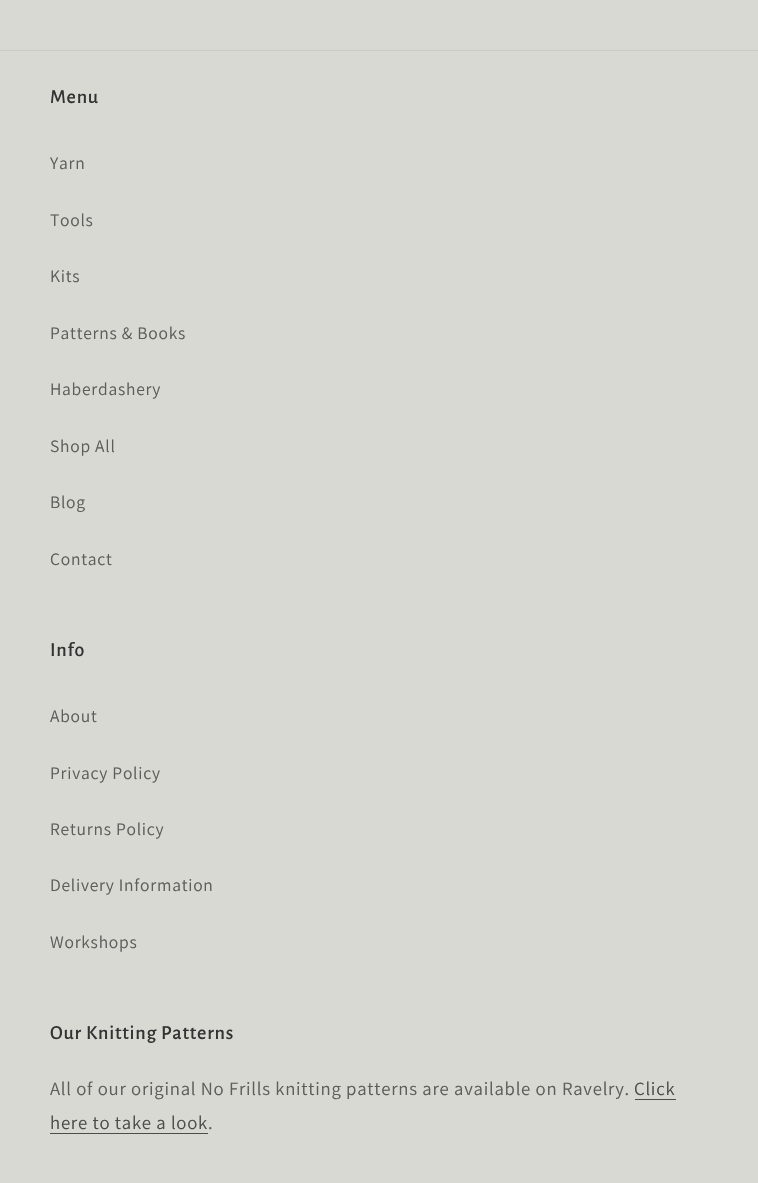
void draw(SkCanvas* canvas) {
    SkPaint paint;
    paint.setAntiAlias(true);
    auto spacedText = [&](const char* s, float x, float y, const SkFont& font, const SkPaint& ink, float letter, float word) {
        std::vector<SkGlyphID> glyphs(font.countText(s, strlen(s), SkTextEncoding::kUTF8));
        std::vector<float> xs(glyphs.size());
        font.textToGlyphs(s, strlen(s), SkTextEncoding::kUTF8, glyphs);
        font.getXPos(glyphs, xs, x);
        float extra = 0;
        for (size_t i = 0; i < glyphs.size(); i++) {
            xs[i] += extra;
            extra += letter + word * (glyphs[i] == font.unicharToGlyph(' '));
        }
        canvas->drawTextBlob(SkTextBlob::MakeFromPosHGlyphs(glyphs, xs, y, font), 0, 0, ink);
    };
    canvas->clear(0xFFD9D9D3);
    paint.setColor(0xFFCCCCC6);
    canvas->drawRect(SkRect::MakeXYWH(0, 50, 758, 1), paint);
    SkFont font1(fontMgr->matchFamilyStyle("Alegreya Sans", SkFontStyle(500, SkFontStyle::kNormal_Width, SkFontStyle::kUpright_Slant)), 20);
    font1.setSubpixel(true);
    paint.setColor(0xFF333333);
    spacedText("Menu", 50, 103, font1, paint, 0.75f, 0);
    SkFont font2(fontMgr->matchFamilyStyle("Assistant", SkFontStyle::Normal()), 17.5f);
    font2.setSubpixel(true);
    paint.setColor(0xFF5D5D5B);
    spacedText("Yarn", 50, 169, font2, paint, 0.75f, 0);
    spacedText("Tools", 50, 226, font2, paint, 0.75f, 0);
    spacedText("Kits", 50, 282, font2, paint, 0.75f, 0);
    spacedText("Patterns & Books", 50, 339, font2, paint, 0.75f, 0);
    spacedText("Haberdashery", 50, 395, font2, paint, 0.75f, 0);
    spacedText("Shop All", 50, 452, font2, paint, 0.75f, 0);
    spacedText("Blog", 50, 508, font2, paint, 0.75f, 0);
    spacedText("Contact", 50, 565, font2, paint, 0.75f, 0);
    paint.setColor(0xFF333333);
    spacedText("Info", 50, 656, font1, paint, 0.75f, 0);
    paint.setColor(0xFF5D5D5B);
    spacedText("About", 50, 722, font2, paint, 0.75f, 0);
    spacedText("Privacy Policy", 50, 779, font2, paint, 0.75f, 0);
    spacedText("Returns Policy", 50, 835, font2, paint, 0.75f, 0);
    spacedText("Delivery Information", 50, 891, font2, paint, 0.75f, 0);
    spacedText("Workshops", 50, 948, font2, paint, 0.75f, 0);
    paint.setColor(0xFF333333);
    spacedText("Our Knitting Patterns", 50, 1039, font1, paint, 0.75f, 0);
    SkFont font3(fontMgr->matchFamilyStyle("Assistant", SkFontStyle::Normal()), 18.75f);
    font3.setSubpixel(true);
    paint.setColor(0xFF5D5D5B);
    spacedText("All of our original No Frills knitting patterns are available on Ravelry.", 50, 1095, font3, paint, 0.75f, 0);
    paint.setColor(0xFF4C4C4B);
    spacedText("Click", 634, 1095, font3, paint, 0.75f, 0);
    canvas->drawRect(SkRect::MakeXYWH(635, 1099, 41, 1), paint);
    spacedText("here to take a look", 50, 1129, font3, paint, 0.75f, 0);
    canvas->drawRect(SkRect::MakeXYWH(50, 1133, 158, 1), paint);
    paint.setColor(0xFF5D5D5B);
    spacedText(".", 208, 1129, font3, paint, 0.75f, 0);
}
